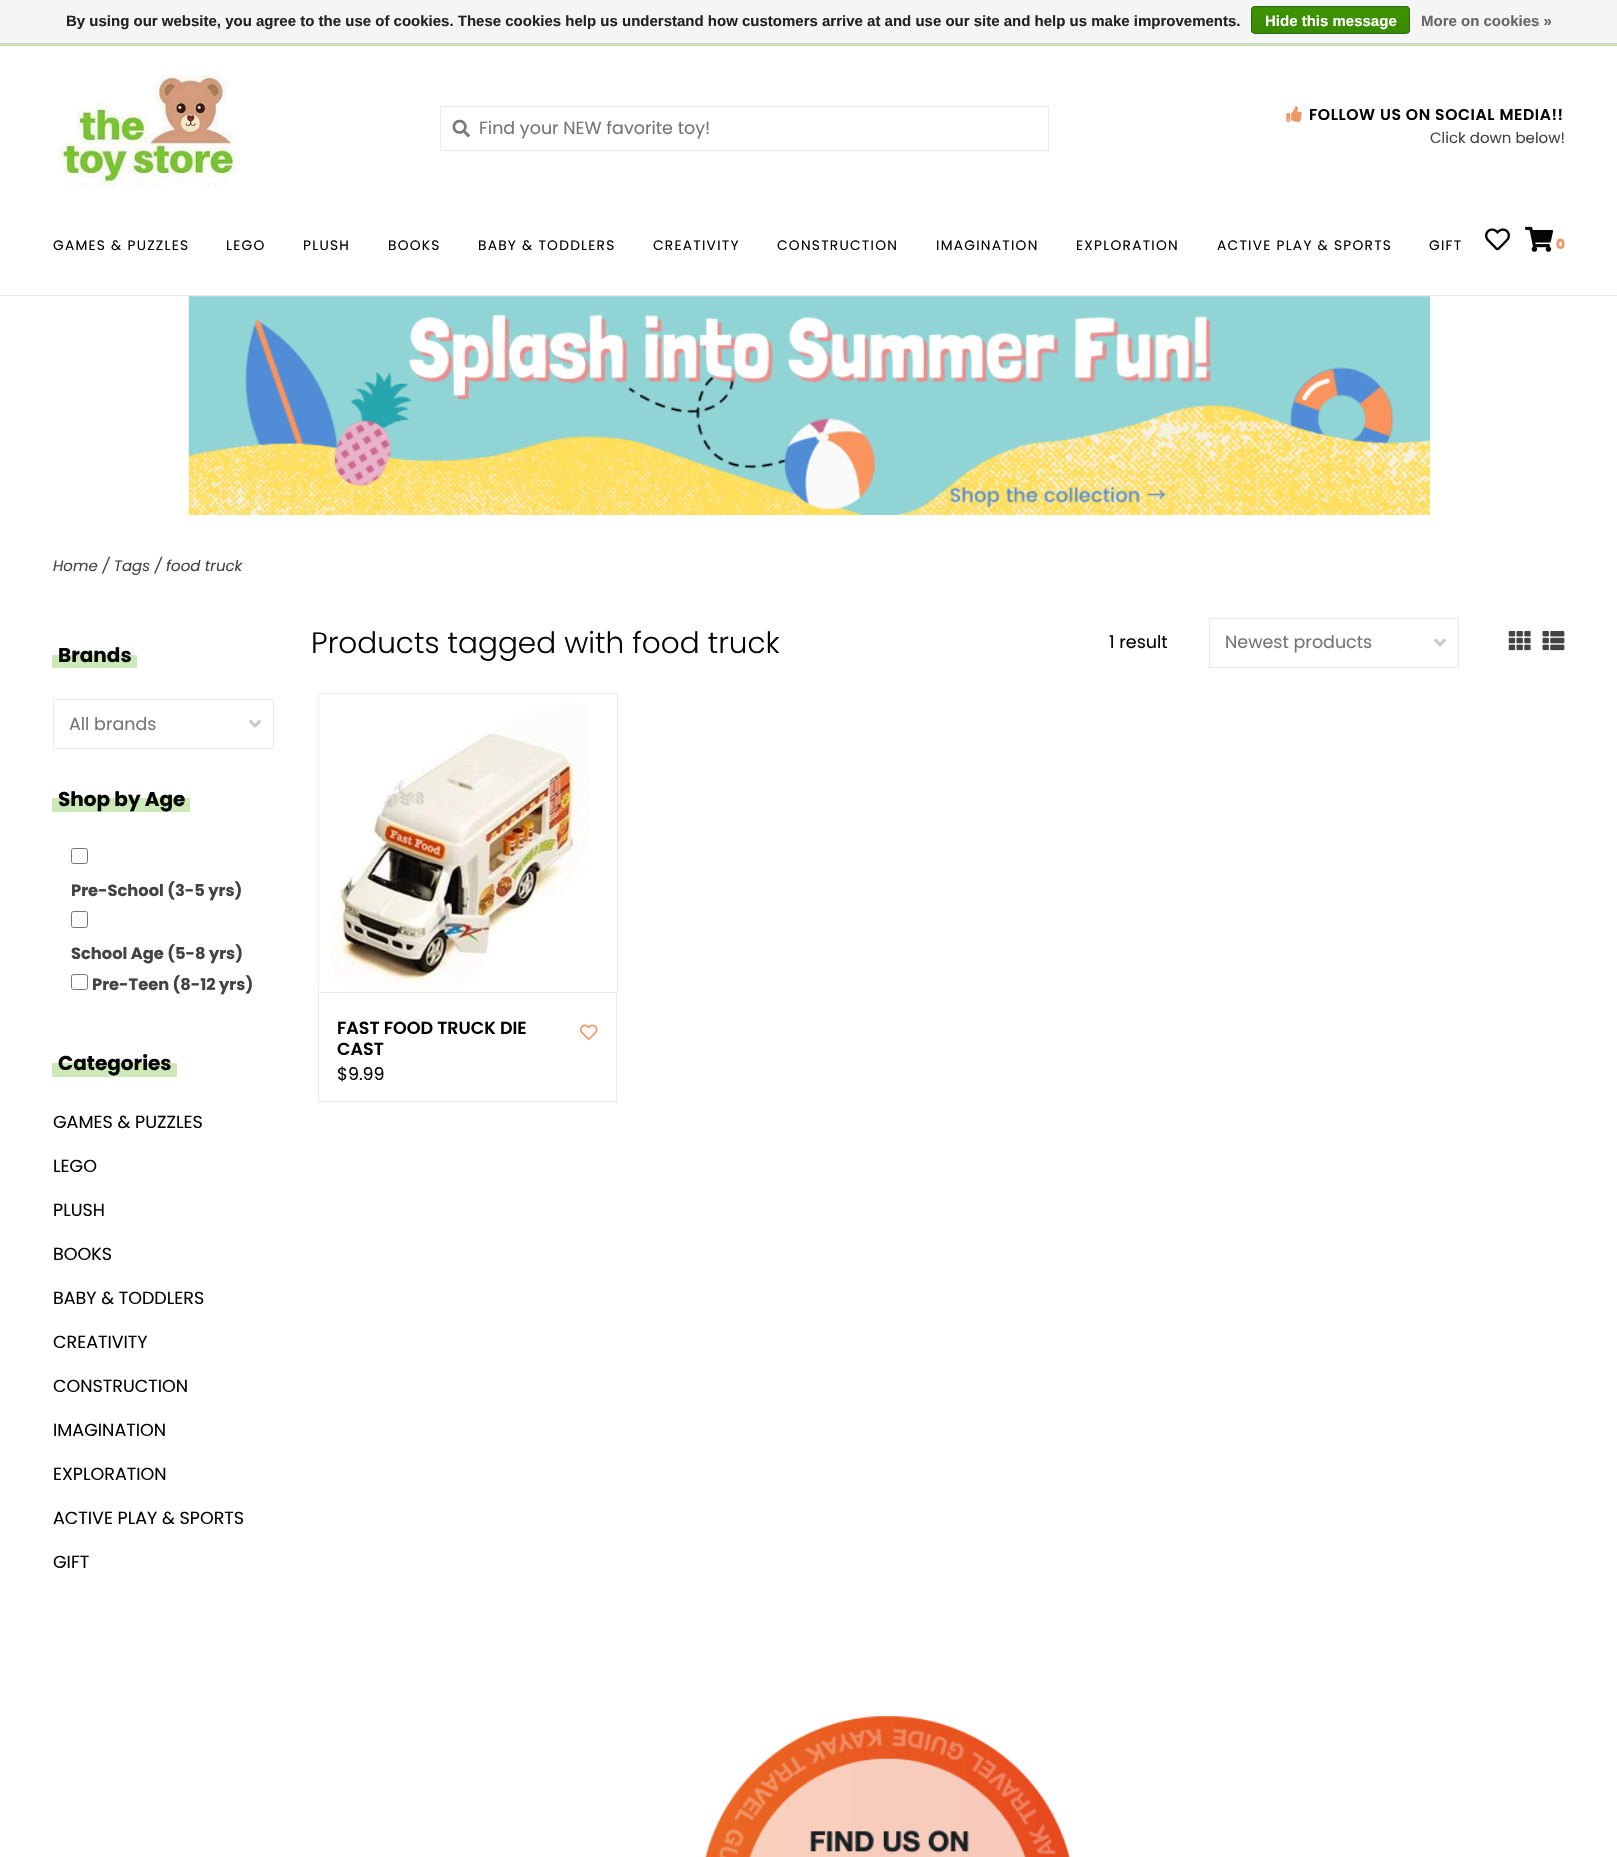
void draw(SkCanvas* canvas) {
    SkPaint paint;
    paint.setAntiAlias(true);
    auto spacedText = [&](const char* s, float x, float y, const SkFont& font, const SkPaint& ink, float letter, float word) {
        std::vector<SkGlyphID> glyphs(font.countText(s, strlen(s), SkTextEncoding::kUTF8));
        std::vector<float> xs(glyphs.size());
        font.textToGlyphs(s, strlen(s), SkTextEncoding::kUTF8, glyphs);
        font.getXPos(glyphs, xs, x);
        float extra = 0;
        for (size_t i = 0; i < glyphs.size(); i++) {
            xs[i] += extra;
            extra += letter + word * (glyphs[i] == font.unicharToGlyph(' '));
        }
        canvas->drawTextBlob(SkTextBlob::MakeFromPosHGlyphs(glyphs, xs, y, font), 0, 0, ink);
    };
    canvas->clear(0xFFFFFFFF);
    paint.setColor(0xFFF5F5F5);
    canvas->drawRect(SkRect::MakeXYWH(0, 0, 1617, 43), paint);
    paint.setColor(0xFFCCCCCC);
    canvas->drawRect(SkRect::MakeXYWH(0, 43, 1617, 1), paint);
    SkFont font1(fontMgr->matchFamilyStyle("Liberation Sans", SkFontStyle::Bold()), 15);
    font1.setSubpixel(true);
    paint.setColor(0xFF222222);
    canvas->drawString("By using our website, you agree to the use of cookies. These cookies help us understand how customers arrive at and use our site and help us make improvements.", 66, 26, font1, paint);
    canvas->save();
    canvas->clipPath(SkPathBuilder().moveTo(1255, 6).lineTo(1406, 6).cubicTo(1408, 6, 1410, 8, 1410, 10).lineTo(1410, 30).cubicTo(1410, 32, 1408, 34, 1406, 34).lineTo(1255, 34).cubicTo(1253, 34, 1251, 32, 1251, 30).lineTo(1251, 10).cubicTo(1251, 8, 1253, 6, 1255, 6).close().detach(), true);
    {
        const SkColor colors[] = {0xFF3C9300, 0xFF398A00};
        const float stops[] = {0, 1};
        const SkPoint ends[] = {{1331, -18}, {1331, 7.5f}};
        paint.setShader(SkGradientShader::MakeLinear(ends, colors, stops, 2, SkTileMode::kClamp));
        paint.setAlpha(255);
    }
    canvas->drawRect(SkRect::MakeXYWH(1251, 6, 159, 2), paint);
    {
        const SkColor colors[] = {0xFF3C9300, 0xFF398A00};
        const float stops[] = {0, 1};
        const SkPoint ends[] = {{1331, 7.5f}, {1331, 33}};
        paint.setShader(SkGradientShader::MakeLinear(ends, colors, stops, 2, SkTileMode::kClamp));
        paint.setAlpha(255);
    }
    canvas->drawRect(SkRect::MakeXYWH(1251, 8, 159, 25), paint);
    canvas->restore();
    paint.setStyle(SkPaint::kStroke_Style);
    paint.setStrokeWidth(1);
    paint.setShader(nullptr);
    paint.setColor(0xFF29691D);
    canvas->drawRoundRect(SkRect::MakeXYWH(1251.5f, 6.5f, 158, 27), 3.5f, 3.5f, paint);
    paint.setStyle(SkPaint::kFill_Style);
    paint.setColor(0xFFFFFFFF);
    canvas->drawString("Hide this message", 1265, 26, font1, paint);
    paint.setColor(0xFF666666);
    canvas->drawString("More on cookies »", 1421, 26, font1, paint);
    paint.setColor(0xFFEAEAEA);
    canvas->drawRect(SkRect::MakeXYWH(0, 295, 1617, 1), paint);
    paint.setColor(0xFFCCE9B7);
    canvas->drawRect(SkRect::MakeXYWH(0, 44, 1617, 1), paint);
    paint.setColor(0xFFBDD8AA);
    canvas->drawRect(SkRect::MakeXYWH(0, 45, 1617, 1), paint);
    canvas->drawImageRect(SkImages::DeferredFromEncodedData(SkData::MakeFromFileName("img1.png")), SkRect::MakeXYWH(58, 71, 183, 117), SkSamplingOptions());
    paint.setStyle(SkPaint::kStroke_Style);
    paint.setColor(0xFFEAEAEA);
    canvas->drawRect(SkRect::MakeXYWH(440.5f, 106.5f, 608, 44), paint);
    canvas->drawImageRect(SkImages::DeferredFromEncodedData(SkData::MakeFromFileName("img2.png")), SkRect::MakeXYWH(452, 119, 18, 19), SkSamplingOptions());
    SkFont font2(fontMgr->matchFamilyStyle("Poppins", SkFontStyle::Normal()), 17.5f);
    font2.setSubpixel(true);
    paint.setStyle(SkPaint::kFill_Style);
    paint.setColor(0xFF757575);
    canvas->drawString("Find your NEW favorite toy!", 479, 134, font2, paint);
    canvas->drawImageRect(SkImages::DeferredFromEncodedData(SkData::MakeFromFileName("img3.png")), SkRect::MakeXYWH(1286, 106, 16, 16), SkSamplingOptions());
    SkFont font3(fontMgr->matchFamilyStyle("Poppins", SkFontStyle(600, SkFontStyle::kNormal_Width, SkFontStyle::kUpright_Slant)), 15.6f);
    font3.setSubpixel(true);
    paint.setColor(0xFF050506);
    spacedText("FOLLOW US ON SOCIAL MEDIA!!", 1309, 120, font3, paint, 0.6f, 0);
    SkFont font4(fontMgr->matchFamilyStyle("Poppins", SkFontStyle::Normal()), 15);
    font4.setSubpixel(true);
    paint.setColor(0xFF434344);
    canvas->drawString("Click down below!", 1430, 143, font4, paint);
    SkFont font5(fontMgr->matchFamilyStyle("Poppins", SkFontStyle::Normal()), 13.75f);
    font5.setSubpixel(true);
    paint.setColor(0xFF050506);
    spacedText("GAMES & PUZZLES", 53, 250, font5, paint, 1.25f, 0);
    spacedText("LEGO", 226, 250, font5, paint, 1.25f, 0);
    spacedText("PLUSH", 303, 250, font5, paint, 1.25f, 0);
    spacedText("BOOKS", 388, 250, font5, paint, 1.25f, 0);
    spacedText("BABY & TODDLERS", 478, 250, font5, paint, 1.25f, 0);
    spacedText("CREATIVITY", 653, 250, font5, paint, 1.25f, 0);
    spacedText("CONSTRUCTION", 777, 250, font5, paint, 1.25f, 0);
    spacedText("IMAGINATION", 936, 250, font5, paint, 1.25f, 0);
    spacedText("EXPLORATION", 1076, 250, font5, paint, 1.25f, 0);
    spacedText("ACTIVE PLAY & SPORTS", 1217, 250, font5, paint, 1.25f, 0);
    spacedText("GIFT", 1429, 250, font5, paint, 1.25f, 0);
    canvas->drawImageRect(SkImages::DeferredFromEncodedData(SkData::MakeFromFileName("img4.png")), SkRect::MakeXYWH(1485, 228, 25, 23), SkSamplingOptions());
    canvas->drawImageRect(SkImages::DeferredFromEncodedData(SkData::MakeFromFileName("img5.png")), SkRect::MakeXYWH(1525, 226, 29, 26), SkSamplingOptions());
    SkFont font6(fontMgr->matchFamilyStyle("Poppins", SkFontStyle(800, SkFontStyle::kNormal_Width, SkFontStyle::kUpright_Slant)), 13.75f);
    font6.setSubpixel(true);
    paint.setColor(0xFFEC9766);
    canvas->drawString("0", 1556, 249, font6, paint);
    canvas->drawImageRect(SkImages::DeferredFromEncodedData(SkData::MakeFromFileName("img6.png")), SkRect::MakeXYWH(188, 296, 1242, 219), SkSamplingOptions());
    SkFont font7(fontMgr->matchFamilyStyle("Poppins", SkFontStyle::Italic()), 15);
    font7.setSubpixel(true);
    paint.setColor(0xFF434344);
    canvas->drawString("Home / Tags / food truck", 53, 571, font7, paint);
    paint.setColor(0xFFCCE9B7);
    canvas->drawRect(SkRect::MakeXYWH(52, 655, 85, 13), paint);
    SkFont font8(fontMgr->matchFamilyStyle("Poppins", SkFontStyle::Bold()), 20);
    font8.setSubpixel(true);
    paint.setColor(0xFF050506);
    canvas->drawString("Brands", 58, 662, font8, paint);
    canvas->drawImageRect(SkImages::DeferredFromEncodedData(SkData::MakeFromFileName("img7.png")), SkRect::MakeXYWH(249, 719, 12, 9), SkSamplingOptions());
    paint.setStyle(SkPaint::kStroke_Style);
    paint.setColor(0xFFEAEAEA);
    canvas->drawRect(SkRect::MakeXYWH(53.5f, 699.5f, 220, 49), paint);
    paint.setStyle(SkPaint::kFill_Style);
    paint.setColor(0xFF757575);
    canvas->drawString("All brands", 69, 730, font2, paint);
    paint.setColor(0xFFCCE9B7);
    canvas->drawRect(SkRect::MakeXYWH(52, 798, 138, 14), paint);
    paint.setColor(0xFF050506);
    canvas->drawString("Shop by Age", 58, 806, font8, paint);
    paint.setStyle(SkPaint::kStroke_Style);
    paint.setColor(0xFF767676);
    canvas->drawRoundRect(SkRect::MakeXYWH(71.5f, 848.5f, 16, 15), 2, 2, paint);
    SkFont font9(fontMgr->matchFamilyStyle("Poppins", SkFontStyle::Bold()), 16.25f);
    font9.setSubpixel(true);
    paint.setStyle(SkPaint::kFill_Style);
    paint.setColor(0xFF434344);
    canvas->drawString("Pre-School (3-5 yrs)", 71, 896, font9, paint);
    paint.setStyle(SkPaint::kStroke_Style);
    paint.setColor(0xFF767676);
    canvas->drawRoundRect(SkRect::MakeXYWH(71.5f, 911.5f, 16, 16), 2, 2, paint);
    paint.setStyle(SkPaint::kFill_Style);
    paint.setColor(0xFF434344);
    canvas->drawString("School Age (5-8 yrs)", 71, 959, font9, paint);
    paint.setStyle(SkPaint::kStroke_Style);
    paint.setColor(0xFF767676);
    canvas->drawRoundRect(SkRect::MakeXYWH(71.5f, 974.5f, 16, 15), 2, 2, paint);
    paint.setStyle(SkPaint::kFill_Style);
    paint.setColor(0xFF434344);
    canvas->drawString("Pre-Teen (8-12 yrs)", 92, 990, font9, paint);
    paint.setColor(0xFFCCE9B7);
    canvas->drawRect(SkRect::MakeXYWH(52, 1063, 125, 14), paint);
    paint.setColor(0xFF050506);
    canvas->drawString("Categories", 58, 1070, font8, paint);
    canvas->drawString("GAMES & PUZZLES", 53, 1128, font2, paint);
    canvas->drawString("LEGO", 53, 1172, font2, paint);
    canvas->drawString("PLUSH", 53, 1216, font2, paint);
    canvas->drawString("BOOKS", 53, 1260, font2, paint);
    canvas->drawString("BABY & TODDLERS", 53, 1304, font2, paint);
    canvas->drawString("CREATIVITY", 53, 1348, font2, paint);
    canvas->drawString("CONSTRUCTION", 53, 1392, font2, paint);
    canvas->drawString("IMAGINATION", 53, 1436, font2, paint);
    canvas->drawString("EXPLORATION", 53, 1480, font2, paint);
    canvas->drawString("ACTIVE PLAY & SPORTS", 53, 1524, font2, paint);
    canvas->drawString("GIFT", 53, 1568, font2, paint);
    SkFont font10(fontMgr->matchFamilyStyle("Poppins", SkFontStyle(300, SkFontStyle::kNormal_Width, SkFontStyle::kUpright_Slant)), 29.5f);
    font10.setSubpixel(true);
    canvas->drawString("Products tagged with food truck", 311, 653, font10, paint);
    canvas->drawString("1 result", 1109, 648, font2, paint);
    canvas->drawImageRect(SkImages::DeferredFromEncodedData(SkData::MakeFromFileName("img8.png")), SkRect::MakeXYWH(1434, 638, 12, 9), SkSamplingOptions());
    paint.setStyle(SkPaint::kStroke_Style);
    paint.setColor(0xFFEAEAEA);
    canvas->drawRect(SkRect::MakeXYWH(1209.5f, 618.5f, 249, 49), paint);
    paint.setStyle(SkPaint::kFill_Style);
    paint.setColor(0xFF757575);
    canvas->drawString("Newest products", 1225, 648, font2, paint);
    canvas->drawImageRect(SkImages::DeferredFromEncodedData(SkData::MakeFromFileName("img9.png")), SkRect::MakeXYWH(1508, 631, 23, 20), SkSamplingOptions());
    canvas->drawImageRect(SkImages::DeferredFromEncodedData(SkData::MakeFromFileName("img10.png")), SkRect::MakeXYWH(1542, 631, 23, 20), SkSamplingOptions());
    paint.setStyle(SkPaint::kStroke_Style);
    paint.setColor(0xFFEAEAEA);
    canvas->drawRect(SkRect::MakeXYWH(318.5f, 693.5f, 299, 299), paint);
    canvas->drawImageRect(SkImages::DeferredFromEncodedData(SkData::MakeFromFileName("img11.png")), SkRect::MakeXYWH(318, 693, 298, 298), SkSamplingOptions());
    paint.setStyle(SkPaint::kFill_Style);
    canvas->drawRect(SkRect::MakeXYWH(616, 993, 1, 110), paint);
    canvas->drawRect(SkRect::MakeXYWH(318, 1101, 300, 1), paint);
    canvas->drawRect(SkRect::MakeXYWH(318, 993, 1, 110), paint);
    SkFont font11(fontMgr->matchFamilyStyle("Poppins", SkFontStyle(600, SkFontStyle::kNormal_Width, SkFontStyle::kUpright_Slant)), 17.5f);
    font11.setSubpixel(true);
    paint.setColor(0xFF050506);
    canvas->drawString("FAST FOOD TRUCK DIE", 337, 1034, font11, paint);
    canvas->drawString("CAST", 337, 1055, font11, paint);
    canvas->drawImageRect(SkImages::DeferredFromEncodedData(SkData::MakeFromFileName("img12.png")), SkRect::MakeXYWH(580, 1024, 18, 16), SkSamplingOptions());
    canvas->drawString("$9.99", 337, 1080, font2, paint);
    canvas->drawImageRect(SkImages::DeferredFromEncodedData(SkData::MakeFromFileName("img13.png")), SkRect::MakeXYWH(705, 1716, 366, 141), SkSamplingOptions());
}
